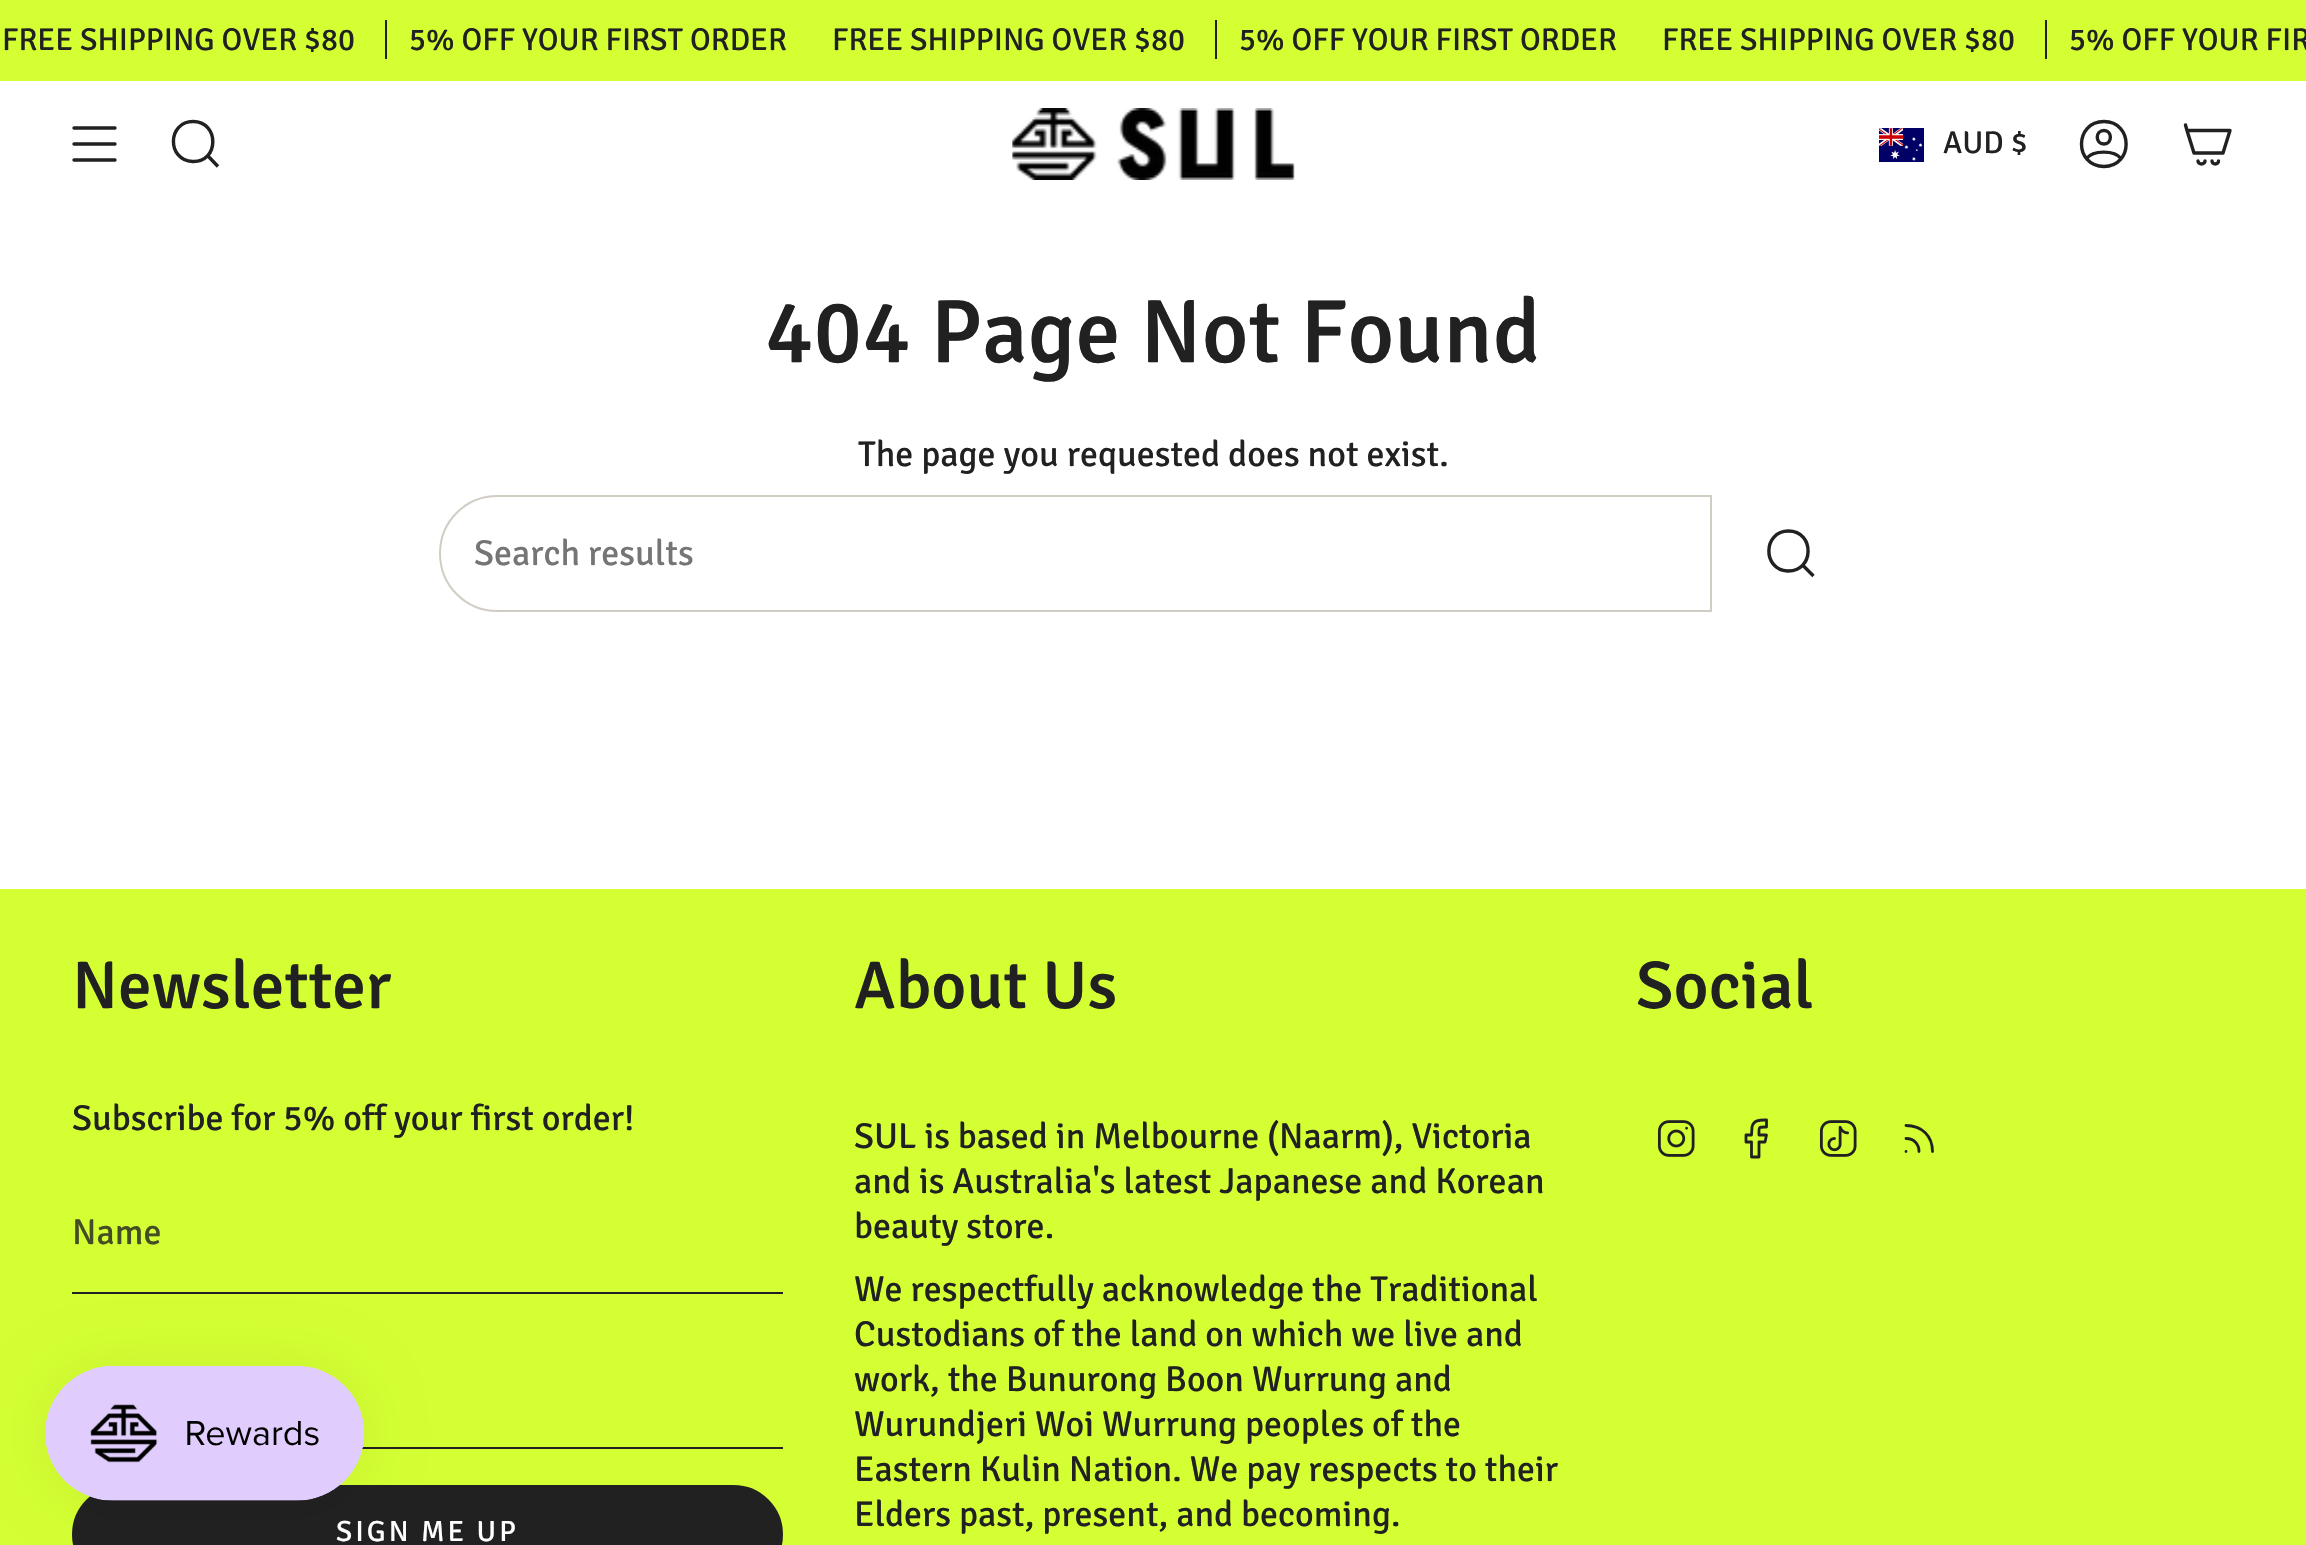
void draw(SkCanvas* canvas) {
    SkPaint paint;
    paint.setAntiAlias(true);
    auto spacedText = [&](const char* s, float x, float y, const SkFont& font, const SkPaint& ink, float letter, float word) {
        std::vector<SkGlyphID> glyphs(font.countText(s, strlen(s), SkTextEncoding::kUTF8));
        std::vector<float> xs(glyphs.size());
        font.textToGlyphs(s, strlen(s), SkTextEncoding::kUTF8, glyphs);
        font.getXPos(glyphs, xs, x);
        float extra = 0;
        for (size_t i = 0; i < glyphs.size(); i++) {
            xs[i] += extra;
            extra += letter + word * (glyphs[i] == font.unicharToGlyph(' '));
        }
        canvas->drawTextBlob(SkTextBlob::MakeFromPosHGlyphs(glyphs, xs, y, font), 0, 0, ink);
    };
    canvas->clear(0xFFFFFFFF);
    paint.setColor(0xFFD3FF33);
    canvas->drawRect(SkRect::MakeXYWH(0, 0, 2306, 81), paint);
    SkFont font1(fontMgr->matchFamilyStyle("Signika", SkFontStyle::Normal()), 31.5f);
    font1.setSubpixel(true);
    paint.setColor(0xFF212121);
    canvas->drawString("FREE SHIPPING OVER $80", 2, 50, font1, paint);
    canvas->drawRect(SkRect::MakeXYWH(385, 20, 2, 39), paint);
    canvas->drawString("5% OFF YOUR FIRST ORDER", 409, 50, font1, paint);
    canvas->drawString("FREE SHIPPING OVER $80", 832, 50, font1, paint);
    canvas->drawRect(SkRect::MakeXYWH(1215, 20, 2, 39), paint);
    canvas->drawString("5% OFF YOUR FIRST ORDER", 1239, 50, font1, paint);
    canvas->drawString("FREE SHIPPING OVER $80", 1662, 50, font1, paint);
    canvas->drawRect(SkRect::MakeXYWH(2045, 20, 2, 39), paint);
    canvas->drawString("5% OFF YOUR FIR", 2069, 50, font1, paint);
    paint.setStyle(SkPaint::kStroke_Style);
    paint.setStrokeWidth(3.4f);
    paint.setStrokeCap(SkPaint::kRound_Cap);
    paint.setStrokeJoin(SkPaint::kRound_Join);
    canvas->drawPath(SkPathBuilder().moveTo(74, 128).lineTo(115, 128).moveTo(74, 144).lineTo(115, 144).moveTo(74, 160).lineTo(115, 160).detach(), paint);
    paint.setStrokeCap(SkPaint::kButt_Cap);
    paint.setStrokeJoin(SkPaint::kMiter_Join);
    canvas->drawPath(SkPathBuilder().moveTo(193, 121.5f).cubicTo(219.5f, 121.5f, 219.5f, 162.5f, 192.5f, 161.5f).cubicTo(166.5f, 160, 167.5f, 121.5f, 193, 121.5f).close().moveTo(207.5f, 155.5f).lineTo(218, 166.5f).detach(), paint);
    canvas->drawImageRect(SkImages::DeferredFromEncodedData(SkData::MakeFromFileName("img1.png")), SkRect::MakeXYWH(1012, 108, 283, 72), SkSamplingOptions());
    canvas->drawImageRect(SkImages::DeferredFromEncodedData(SkData::MakeFromFileName("img2.png")), SkRect::MakeXYWH(1879, 128, 45, 34), SkSamplingOptions());
    paint.setStyle(SkPaint::kFill_Style);
    canvas->drawString("AUD $", 1943, 153, font1, paint);
    paint.setStyle(SkPaint::kStroke_Style);
    paint.setStrokeCap(SkPaint::kRound_Cap);
    paint.setStrokeJoin(SkPaint::kRound_Join);
    canvas->drawPath(SkPathBuilder().moveTo(2104, 121.5f).cubicTo(2074, 121.5f, 2074, 166.5f, 2104, 166.5f).cubicTo(2133.5f, 166.5f, 2133.5f, 121.5f, 2104, 121.5f).close().moveTo(2086.5f, 158.5f).cubicTo(2093, 150, 2114.5f, 150, 2121, 158.5f).moveTo(2104, 144).cubicTo(2112.5f, 144, 2112.5f, 130.5f, 2104, 130.5f).cubicTo(2095, 130.5f, 2095, 144, 2104, 144).close().detach(), paint);
    canvas->drawPath(SkPathBuilder().moveTo(2187, 130.5f).lineTo(2230, 130.5f).lineTo(2223, 153).lineTo(2194, 153).close().moveTo(2187, 130.5f).lineTo(2185.5f, 125).moveTo(2205, 161).cubicTo(2205, 165, 2198, 165, 2198, 161).moveTo(2218.5f, 161).cubicTo(2218.5f, 165, 2212, 165, 2212, 161).detach(), paint);
    SkFont font2(fontMgr->matchFamilyStyle("Signika", SkFontStyle(500, SkFontStyle::kNormal_Width, SkFontStyle::kUpright_Slant)), 90);
    font2.setSubpixel(true);
    paint.setStyle(SkPaint::kFill_Style);
    canvas->drawString("404 Page Not Found", 765, 362, font2, paint);
    SkFont font3(fontMgr->matchFamilyStyle("Signika", SkFontStyle::Normal()), 36);
    font3.setSubpixel(true);
    canvas->drawString("The page you requested does not exist.", 858, 466, font3, paint);
    paint.setStyle(SkPaint::kStroke_Style);
    paint.setStrokeWidth(2);
    paint.setStrokeCap(SkPaint::kButt_Cap);
    paint.setStrokeJoin(SkPaint::kMiter_Join);
    paint.setColor(0xFFD1CDC4);
    canvas->drawPath(SkPathBuilder().moveTo(497.5f, 496).lineTo(1711, 496).lineTo(1711, 611).lineTo(497.5f, 611).cubicTo(465.5f, 611, 440, 585.5f, 440, 553.5f).cubicTo(440, 521.5f, 465.5f, 496, 497.5f, 496).close().detach(), paint);
    paint.setStyle(SkPaint::kFill_Style);
    paint.setColor(0xFF757575);
    canvas->drawString("Search results", 474, 565, font3, paint);
    paint.setStyle(SkPaint::kStroke_Style);
    paint.setStrokeWidth(3.4f);
    paint.setColor(0xFF212121);
    canvas->drawPath(SkPathBuilder().moveTo(1788.5f, 531).cubicTo(1815, 531, 1814.5f, 572, 1787.5f, 571).cubicTo(1762, 569.5f, 1763, 531, 1788.5f, 531).close().moveTo(1802.5f, 565).lineTo(1813.5f, 576).detach(), paint);
    paint.setStyle(SkPaint::kFill_Style);
    paint.setColor(0xFFD3FF33);
    canvas->drawRect(SkRect::MakeXYWH(0, 889, 2306, 656), paint);
    SkFont font4(fontMgr->matchFamilyStyle("Signika", SkFontStyle(500, SkFontStyle::kNormal_Width, SkFontStyle::kUpright_Slant)), 67.5f);
    font4.setSubpixel(true);
    paint.setColor(0xFF212121);
    canvas->drawString("Newsletter", 72, 1008, font4, paint);
    canvas->drawString("Subscribe for 5% off your first order!", 72, 1130, font3, paint);
    canvas->drawRect(SkRect::MakeXYWH(72, 1292, 711, 2), paint);
    paint.setColor(0xFF454D25);
    canvas->drawString("Name", 72, 1244, font3, paint);
    paint.setColor(0xFF212121);
    canvas->drawRect(SkRect::MakeXYWH(362, 1447, 421, 2), paint);
    canvas->drawRoundRect(SkRect::MakeXYWH(73, 1486, 709, 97), 48.5f, 48.5f, paint);
    paint.setStyle(SkPaint::kStroke_Style);
    paint.setStrokeWidth(2);
    canvas->drawRoundRect(SkRect::MakeXYWH(73, 1486, 709, 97), 48.5f, 48.5f, paint);
    SkFont font5(fontMgr->matchFamilyStyle("Signika", SkFontStyle::Normal()), 29.25f);
    font5.setSubpixel(true);
    paint.setStyle(SkPaint::kFill_Style);
    paint.setColor(0xFFFFFFFF);
    spacedText("SIGN ME UP", 336, 1541, font5, paint, 3, 0);
    paint.setColor(0xFF212121);
    canvas->drawString("About Us", 854, 1008, font4, paint);
    canvas->drawString("SUL is based in Melbourne (Naarm), Victoria", 854, 1148, font3, paint);
    canvas->drawString("and is Australia's latest Japanese and Korean", 854, 1193, font3, paint);
    canvas->drawString("beauty store.", 854, 1238, font3, paint);
    canvas->drawString("We respectfully acknowledge the Traditional", 854, 1301, font3, paint);
    canvas->drawString("Custodians of the land on which we live and", 854, 1346, font3, paint);
    canvas->drawString("work, the Bunurong Boon Wurrung and", 854, 1391, font3, paint);
    canvas->drawString("Wurundjeri Woi Wurrung peoples of the", 854, 1436, font3, paint);
    canvas->drawString("Eastern Kulin Nation. We pay respects to their", 854, 1481, font3, paint);
    canvas->drawString("Elders past, present, and becoming.", 854, 1526, font3, paint);
    canvas->drawString("Social", 1636, 1008, font4, paint);
    canvas->drawImageRect(SkImages::DeferredFromEncodedData(SkData::MakeFromFileName("img3.png")), SkRect::MakeXYWH(1657, 1120, 38, 37), SkSamplingOptions());
    paint.setStyle(SkPaint::kStroke_Style);
    paint.setStrokeWidth(2.8f);
    paint.setStrokeCap(SkPaint::kRound_Cap);
    paint.setStrokeJoin(SkPaint::kRound_Join);
    canvas->drawPath(SkPathBuilder().moveTo(1766.5f, 1120).cubicTo(1760.5f, 1120, 1753.5f, 1119.5f, 1752, 1127).lineTo(1751.5f, 1135).lineTo(1746, 1135).lineTo(1746, 1142).lineTo(1751.5f, 1142).lineTo(1751.5f, 1157).lineTo(1759, 1157).lineTo(1759, 1142).lineTo(1765, 1142).lineTo(1766.5f, 1135).lineTo(1759, 1135).cubicTo(1759, 1126.5f, 1758, 1127, 1766.5f, 1127).close().detach(), paint);
    canvas->drawImageRect(SkImages::DeferredFromEncodedData(SkData::MakeFromFileName("img4.png")), SkRect::MakeXYWH(1819, 1120, 38, 37), SkSamplingOptions());
    canvas->drawPath(SkPathBuilder().moveTo(1919, 1151.5f).cubicTo(1919, 1144, 1914, 1138.5f, 1906, 1138.5f).moveTo(1932.5f, 1151.5f).cubicTo(1932.5f, 1136, 1922, 1125.5f, 1906, 1125.5f).moveTo(1906, 1151.5f).lineTo(1906, 1151.5f).detach(), paint);
    paint.setStyle(SkPaint::kFill_Style);
    paint.setColor(0x0D000000);
    paint.setMaskFilter(SkMaskFilter::MakeBlur(kNormal_SkBlurStyle, 28));
    canvas->drawRoundRect(SkRect::MakeXYWH(45, 1366, 320, 135), 67.5f, 67.5f, paint);
    paint.setMaskFilter(nullptr);
    canvas->drawImageRect(SkImages::DeferredFromEncodedData(SkData::MakeFromFileName("img5.png")), SkRect::MakeXYWH(45, 1366, 320, 135), SkSamplingOptions());
}
